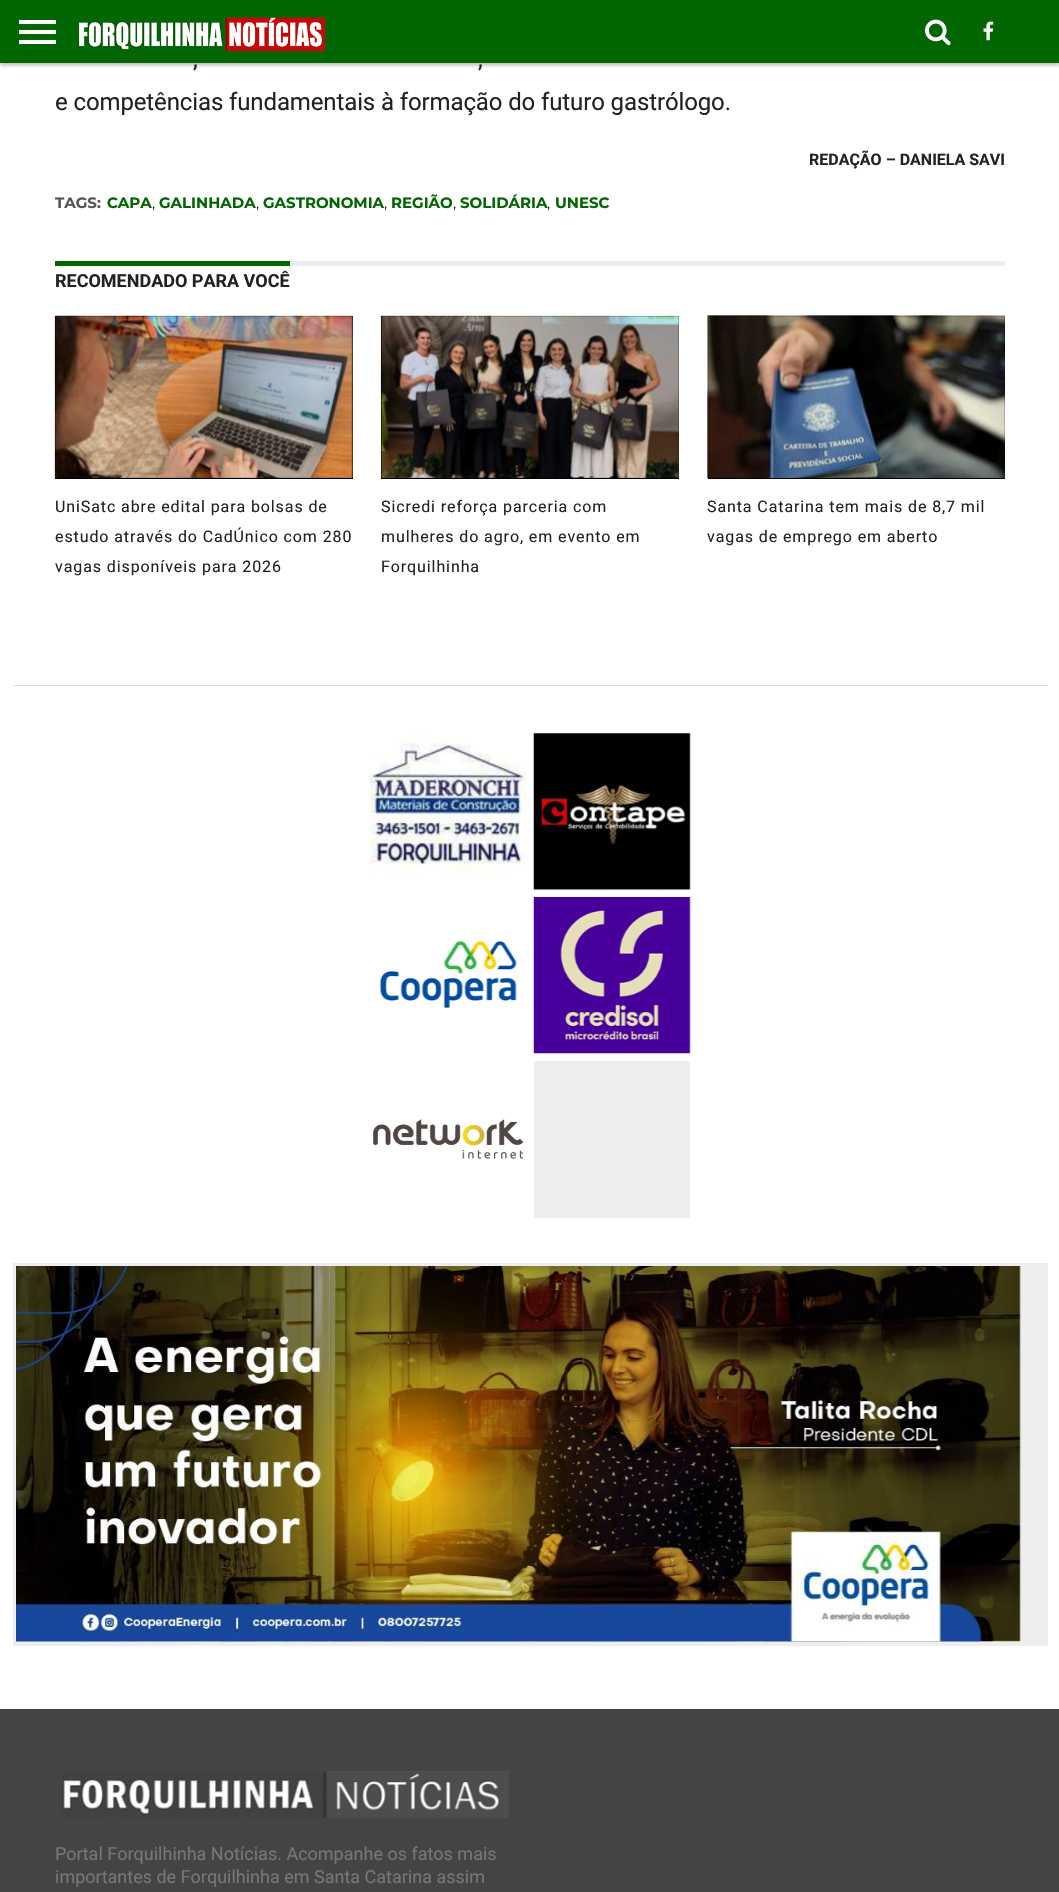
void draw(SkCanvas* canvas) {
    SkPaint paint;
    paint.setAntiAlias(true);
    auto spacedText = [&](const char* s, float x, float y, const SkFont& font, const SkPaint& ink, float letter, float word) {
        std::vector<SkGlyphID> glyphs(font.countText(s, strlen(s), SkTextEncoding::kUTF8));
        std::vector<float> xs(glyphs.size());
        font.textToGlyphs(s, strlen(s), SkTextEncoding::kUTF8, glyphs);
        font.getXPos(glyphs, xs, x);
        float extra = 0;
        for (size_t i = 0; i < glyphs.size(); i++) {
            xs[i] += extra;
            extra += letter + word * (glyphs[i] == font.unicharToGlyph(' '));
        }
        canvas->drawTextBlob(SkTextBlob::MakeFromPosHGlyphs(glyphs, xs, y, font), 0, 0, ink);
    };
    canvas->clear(0xFFFFFFFF);
    paint.setColor(0x4D000000);
    paint.setMaskFilter(SkMaskFilter::MakeBlur(kNormal_SkBlurStyle, 2));
    canvas->drawRect(SkRect::MakeXYWH(0, 3, 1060, 62), paint);
    paint.setMaskFilter(nullptr);
    paint.setColor(0xFF026603);
    canvas->drawRect(SkRect::MakeXYWH(0, 0, 1059, 63), paint);
    paint.setColor(0xFFFFFFFF);
    canvas->drawRect(SkRect::MakeXYWH(19, 20, 37, 4), paint);
    canvas->drawRect(SkRect::MakeXYWH(19, 30, 37, 4), paint);
    canvas->drawRect(SkRect::MakeXYWH(19, 40, 37, 4), paint);
    canvas->drawImageRect(SkImages::DeferredFromEncodedData(SkData::MakeFromFileName("img1.png")), SkRect::MakeXYWH(78, 17, 247, 35), SkSamplingOptions());
    canvas->drawImageRect(SkImages::DeferredFromEncodedData(SkData::MakeFromFileName("img2.png")), SkRect::MakeXYWH(925, 19, 26, 27), SkSamplingOptions());
    canvas->drawImageRect(SkImages::DeferredFromEncodedData(SkData::MakeFromFileName("img3.png")), SkRect::MakeXYWH(983, 21, 11, 20), SkSamplingOptions());
    paint.setColor(0xFFDDDDDD);
    canvas->drawRect(SkRect::MakeXYWH(13, 685, 1035, 1), paint);
    SkFont font1(fontMgr->matchFamilyStyle("Roboto", SkFontStyle::Normal()), 24);
    font1.setSubpixel(true);
    paint.setColor(0xFF222222);
    spacedText(",", 193, 67, font1, paint, -0.12f, 0);
    spacedText(",", 478, 67, font1, paint, -0.12f, 0);
    spacedText("e competências fundamentais à formação do futuro gastrólogo.", 55, 110, font1, paint, -0.12f, 0);
    SkFont font2(fontMgr->matchFamilyStyle("Roboto", SkFontStyle::Bold()), 16);
    font2.setSubpixel(true);
    canvas->drawString("REDAÇÃO – DANIELA SAVI", 809, 165, font2, paint);
    SkFont font3(fontMgr->matchFamilyStyle("Montserrat", SkFontStyle::Bold()), 15);
    font3.setSubpixel(true);
    paint.setColor(0xFF555555);
    canvas->drawString("TAGS:", 55, 208, font3, paint);
    paint.setColor(0xFF026603);
    canvas->drawString("CAPA", 107, 208, font3, paint);
    SkFont font4(fontMgr->matchFamilyStyle("Montserrat", SkFontStyle::Normal()), 15);
    font4.setSubpixel(true);
    paint.setColor(0xFF222222);
    canvas->drawString(",", 152, 208, font4, paint);
    paint.setColor(0xFF026603);
    canvas->drawString("GALINHADA", 159, 208, font3, paint);
    paint.setColor(0xFF222222);
    canvas->drawString(",", 256, 208, font4, paint);
    paint.setColor(0xFF026603);
    canvas->drawString("GASTRONOMIA", 263, 208, font3, paint);
    paint.setColor(0xFF222222);
    canvas->drawString(",", 384, 208, font4, paint);
    paint.setColor(0xFF026603);
    canvas->drawString("REGIÃO", 391, 208, font3, paint);
    paint.setColor(0xFF222222);
    canvas->drawString(",", 453, 208, font4, paint);
    paint.setColor(0xFF026603);
    canvas->drawString("SOLIDÁRIA", 460, 208, font3, paint);
    paint.setColor(0xFF222222);
    canvas->drawString(",", 547, 208, font4, paint);
    paint.setColor(0xFF026603);
    canvas->drawString("UNESC", 555, 208, font3, paint);
    paint.setColor(0xFFEEEEEE);
    canvas->drawRect(SkRect::MakeXYWH(290, 261, 715, 5), paint);
    paint.setColor(0xFF026603);
    canvas->drawRect(SkRect::MakeXYWH(55, 261, 235, 5), paint);
    SkFont font5(fontMgr->matchFamilyStyle("Roboto", SkFontStyle::Bold()), 18);
    font5.setSubpixel(true);
    paint.setColor(0xFF222222);
    canvas->drawString("RECOMENDADO PARA VOCÊ", 55, 287, font5, paint);
    paint.setColor(0xFF000000);
    canvas->drawRect(SkRect::MakeXYWH(55, 316, 298, 163), paint);
    canvas->drawImageRect(SkImages::DeferredFromEncodedData(SkData::MakeFromFileName("img4.png")), SkRect::MakeXYWH(54, 315, 299, 163), SkSamplingOptions());
    SkFont font6(fontMgr->matchFamilyStyle("Roboto", SkFontStyle::Normal()), 16);
    font6.setSubpixel(true);
    paint.setColor(0xFF222222);
    spacedText("UniSatc abre edital para bolsas de", 55, 512, font6, paint, 0.9f, 0);
    spacedText("estudo através do CadÚnico com 280", 55, 542, font6, paint, 0.9f, 0);
    spacedText("vagas disponíveis para 2026", 55, 572, font6, paint, 0.9f, 0);
    paint.setColor(0xFF000000);
    canvas->drawRect(SkRect::MakeXYWH(381, 316, 298, 163), paint);
    canvas->drawImageRect(SkImages::DeferredFromEncodedData(SkData::MakeFromFileName("img5.png")), SkRect::MakeXYWH(380, 315, 299, 163), SkSamplingOptions());
    paint.setColor(0xFF222222);
    spacedText("Sicredi reforça parceria com", 381, 512, font6, paint, 0.9f, 0);
    spacedText("mulheres do agro, em evento em", 381, 542, font6, paint, 0.9f, 0);
    spacedText("Forquilhinha", 381, 572, font6, paint, 0.9f, 0);
    paint.setColor(0xFF000000);
    canvas->drawRect(SkRect::MakeXYWH(708, 316, 297, 163), paint);
    canvas->drawImageRect(SkImages::DeferredFromEncodedData(SkData::MakeFromFileName("img6.png")), SkRect::MakeXYWH(707, 315, 298, 163), SkSamplingOptions());
    paint.setColor(0xFF222222);
    spacedText("Santa Catarina tem mais de 8,7 mil", 707, 512, font6, paint, 0.9f, 0);
    spacedText("vagas de emprego em aberto", 707, 542, font6, paint, 0.9f, 0);
    canvas->drawImageRect(SkImages::DeferredFromEncodedData(SkData::MakeFromFileName("img7.png")), SkRect::MakeXYWH(369, 733, 158, 140), SkSamplingOptions());
    canvas->drawImageRect(SkImages::DeferredFromEncodedData(SkData::MakeFromFileName("img8.png")), SkRect::MakeXYWH(533, 733, 158, 158), SkSamplingOptions());
    canvas->drawImageRect(SkImages::DeferredFromEncodedData(SkData::MakeFromFileName("img9.png")), SkRect::MakeXYWH(379, 940, 138, 68), SkSamplingOptions());
    canvas->drawImageRect(SkImages::DeferredFromEncodedData(SkData::MakeFromFileName("img10.png")), SkRect::MakeXYWH(533, 897, 158, 157), SkSamplingOptions());
    canvas->drawImageRect(SkImages::DeferredFromEncodedData(SkData::MakeFromFileName("img11.png")), SkRect::MakeXYWH(373, 1119, 151, 40), SkSamplingOptions());
    paint.setColor(0xFFEEEEEE);
    canvas->drawRect(SkRect::MakeXYWH(534, 1061, 156, 157), paint);
    canvas->drawRect(SkRect::MakeXYWH(13, 1263, 1035, 383), paint);
    canvas->drawImageRect(SkImages::DeferredFromEncodedData(SkData::MakeFromFileName("img12.png")), SkRect::MakeXYWH(16, 1266, 1005, 376), SkSamplingOptions());
    paint.setColor(0xFF444444);
    canvas->drawRect(SkRect::MakeXYWH(0, 1709, 1059, 183), paint);
    canvas->drawImageRect(SkImages::DeferredFromEncodedData(SkData::MakeFromFileName("img13.png")), SkRect::MakeXYWH(62, 1771, 447, 48), SkSamplingOptions());
    SkFont font7(fontMgr->matchFamilyStyle("Roboto", SkFontStyle::Normal()), 18);
    font7.setSubpixel(true);
    paint.setColor(0xFF777777);
    canvas->drawString("Portal Forquilhinha Notícias. Acompanhe os fatos mais", 55, 1860, font7, paint);
    canvas->drawString("importantes de Forquilhinha em Santa Catarina assim", 55, 1883, font7, paint);
}
